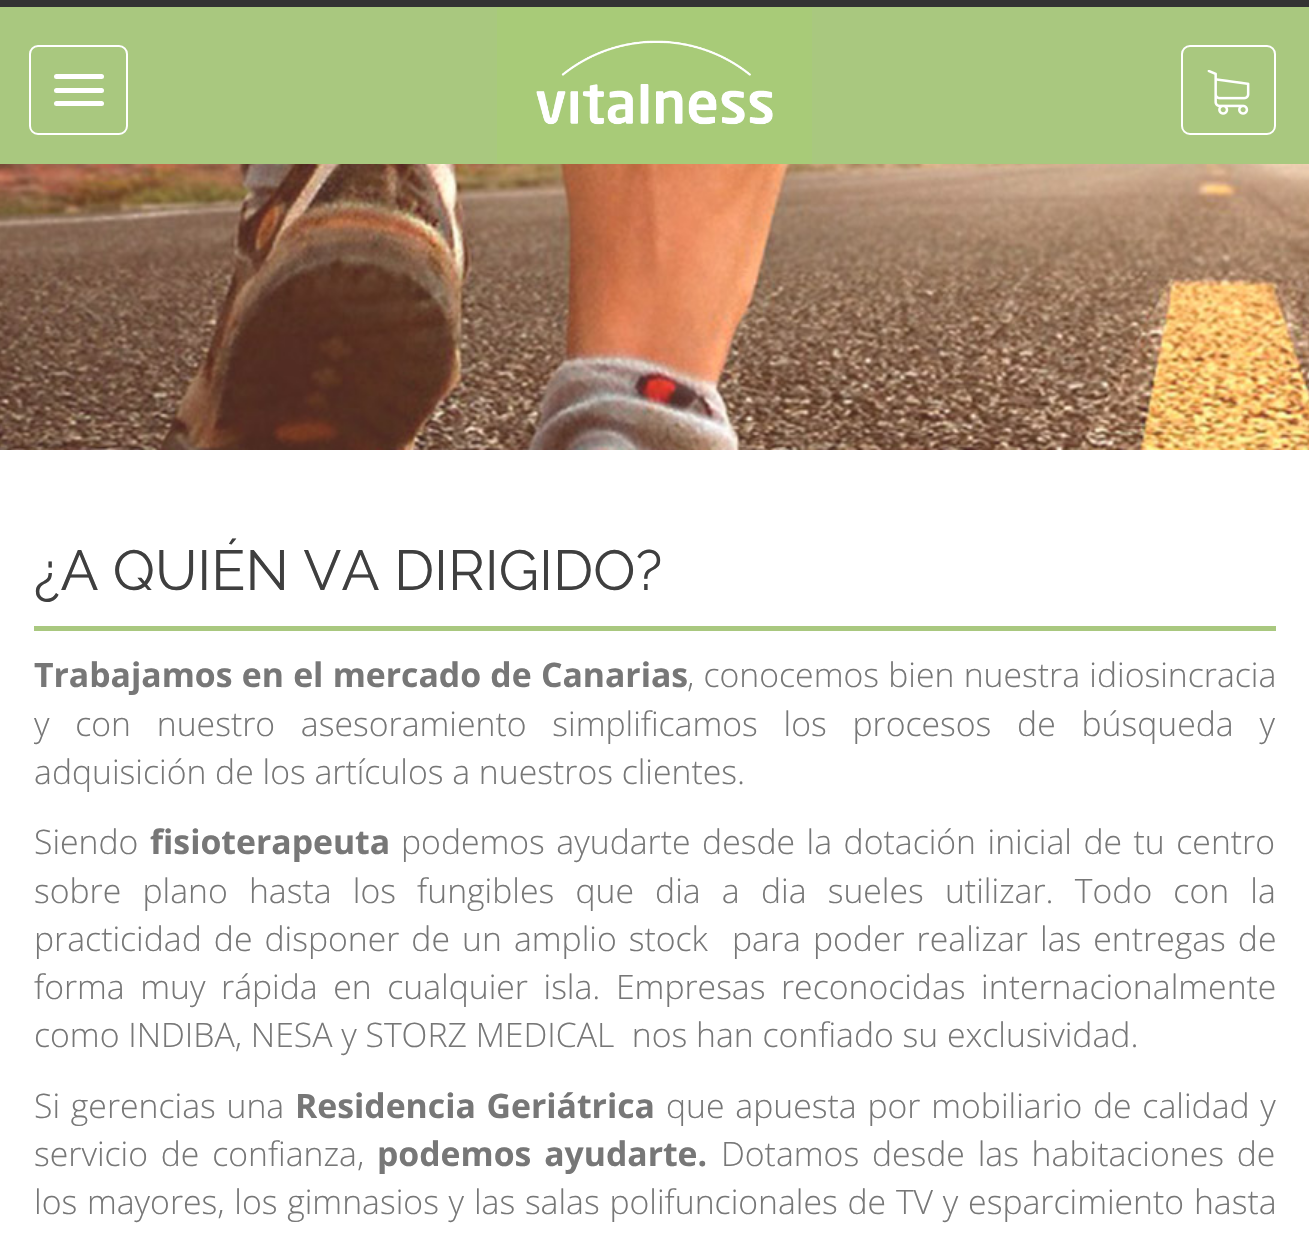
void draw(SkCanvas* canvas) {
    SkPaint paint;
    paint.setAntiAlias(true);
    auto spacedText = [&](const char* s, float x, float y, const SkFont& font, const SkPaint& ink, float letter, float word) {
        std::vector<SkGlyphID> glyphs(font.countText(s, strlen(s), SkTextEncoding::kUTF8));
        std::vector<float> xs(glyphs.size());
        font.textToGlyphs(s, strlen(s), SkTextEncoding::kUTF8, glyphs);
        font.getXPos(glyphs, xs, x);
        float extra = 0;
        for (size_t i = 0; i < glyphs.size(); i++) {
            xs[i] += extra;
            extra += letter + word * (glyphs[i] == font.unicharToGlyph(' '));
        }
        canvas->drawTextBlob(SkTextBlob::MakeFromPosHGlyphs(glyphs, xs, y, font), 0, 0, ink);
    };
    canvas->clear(0xFFFFFFFF);
    paint.setColor(0xFF333333);
    canvas->drawRect(SkRect::MakeXYWH(0, 0, 1309, 7), paint);
    paint.setColor(0xFFA9C87F);
    canvas->drawRect(SkRect::MakeXYWH(0, 7, 1309, 157), paint);
    paint.setStyle(SkPaint::kStroke_Style);
    paint.setStrokeWidth(2);
    paint.setColor(0xFFFFFFFF);
    canvas->drawRoundRect(SkRect::MakeXYWH(30, 46, 97, 88), 8, 8, paint);
    paint.setStyle(SkPaint::kFill_Style);
    canvas->drawRoundRect(SkRect::MakeXYWH(54, 74, 50, 5), 2.5f, 2.5f, paint);
    canvas->drawRoundRect(SkRect::MakeXYWH(54, 88, 50, 5), 2.5f, 2.5f, paint);
    canvas->drawRoundRect(SkRect::MakeXYWH(54, 101, 50, 5), 2.5f, 2.5f, paint);
    canvas->drawImageRect(SkImages::DeferredFromEncodedData(SkData::MakeFromFileName("img1.png")), SkRect::MakeXYWH(497, 7, 315, 157), SkSamplingOptions());
    paint.setStyle(SkPaint::kStroke_Style);
    canvas->drawRoundRect(SkRect::MakeXYWH(1182, 46, 93, 88), 8, 8, paint);
    canvas->drawImageRect(SkImages::DeferredFromEncodedData(SkData::MakeFromFileName("img2.png")), SkRect::MakeXYWH(1207, 70, 43, 45), SkSamplingOptions());
    canvas->drawImageRect(SkImages::DeferredFromEncodedData(SkData::MakeFromFileName("img3.png")), SkRect::MakeXYWH(0, 164, 1309, 286), SkSamplingOptions());
    SkFont font1(fontMgr->matchFamilyStyle("Raleway", SkFontStyle(100, SkFontStyle::kNormal_Width, SkFontStyle::kUpright_Slant)), 56.25f);
    font1.setSubpixel(true);
    paint.setStyle(SkPaint::kFill_Style);
    paint.setColor(0xFF3F3F3F);
    canvas->drawString("¿A QUIÉN VA DIRIGIDO?", 34, 590, font1, paint);
    paint.setColor(0xFFA9C87F);
    canvas->drawRect(SkRect::MakeXYWH(34, 626, 1242, 5), paint);
    SkFont font2(fontMgr->matchFamilyStyle("Open Sans", SkFontStyle::Bold()), 33.75f);
    font2.setSubpixel(true);
    paint.setColor(0xFF777777);
    spacedText("Trabajamos en el mercado de Canarias", 34, 687, font2, paint, 0, 0.5f);
    SkFont font3(fontMgr->matchFamilyStyle("Open Sans", SkFontStyle(300, SkFontStyle::kNormal_Width, SkFontStyle::kUpright_Slant)), 33.75f);
    font3.setSubpixel(true);
    spacedText(", conocemos bien nuestra idiosincracia", 687, 687, font3, paint, 0, 0.5f);
    spacedText("y con nuestro asesoramiento simplificamos los procesos de búsqueda y", 34, 736, font3, paint, 0, 17);
    canvas->drawString("adquisición de los artículos a nuestros clientes.", 34, 784, font3, paint);
    canvas->drawString("Siendo", 34, 854, font3, paint);
    canvas->drawString("fisioterapeuta", 150, 854, font2, paint);
    spacedText("podemos ayudarte desde la dotación inicial de tu centro", 401, 854, font3, paint, 0, 2.75f);
    spacedText("sobre plano hasta los fungibles que dia a dia sueles utilizar. Todo con la", 34, 903, font3, paint, 0, 12.4f);
    spacedText("practicidad de disponer de un amplio stock  para poder realizar las entregas de", 34, 951, font3, paint, 0, 3.25f);
    spacedText("forma muy rápida en cualquier isla. Empresas reconocidas internacionalmente", 34, 999, font3, paint, 0, 6.75f);
    canvas->drawString("como INDIBA, NESA y STORZ MEDICAL  nos han confiado su exclusividad.", 34, 1047, font3, paint);
    spacedText("Si gerencias una", 34, 1118, font3, paint, 0, 2);
    spacedText("Residencia Geriátrica", 295, 1118, font2, paint, 0, 2);
    spacedText("que apuesta por mobiliario de calidad y", 666, 1118, font3, paint, 0, 2);
    spacedText("servicio de confianza,", 34, 1166, font3, paint, 0, 4);
    spacedText("podemos ayudarte.", 377, 1166, font2, paint, 0, 4);
    spacedText("Dotamos desde las habitaciones de", 721, 1166, font3, paint, 0, 4);
    spacedText("los mayores, los gimnasios y las salas polifuncionales de TV y esparcimiento hasta", 34, 1214, font3, paint, 0, 1);
}
